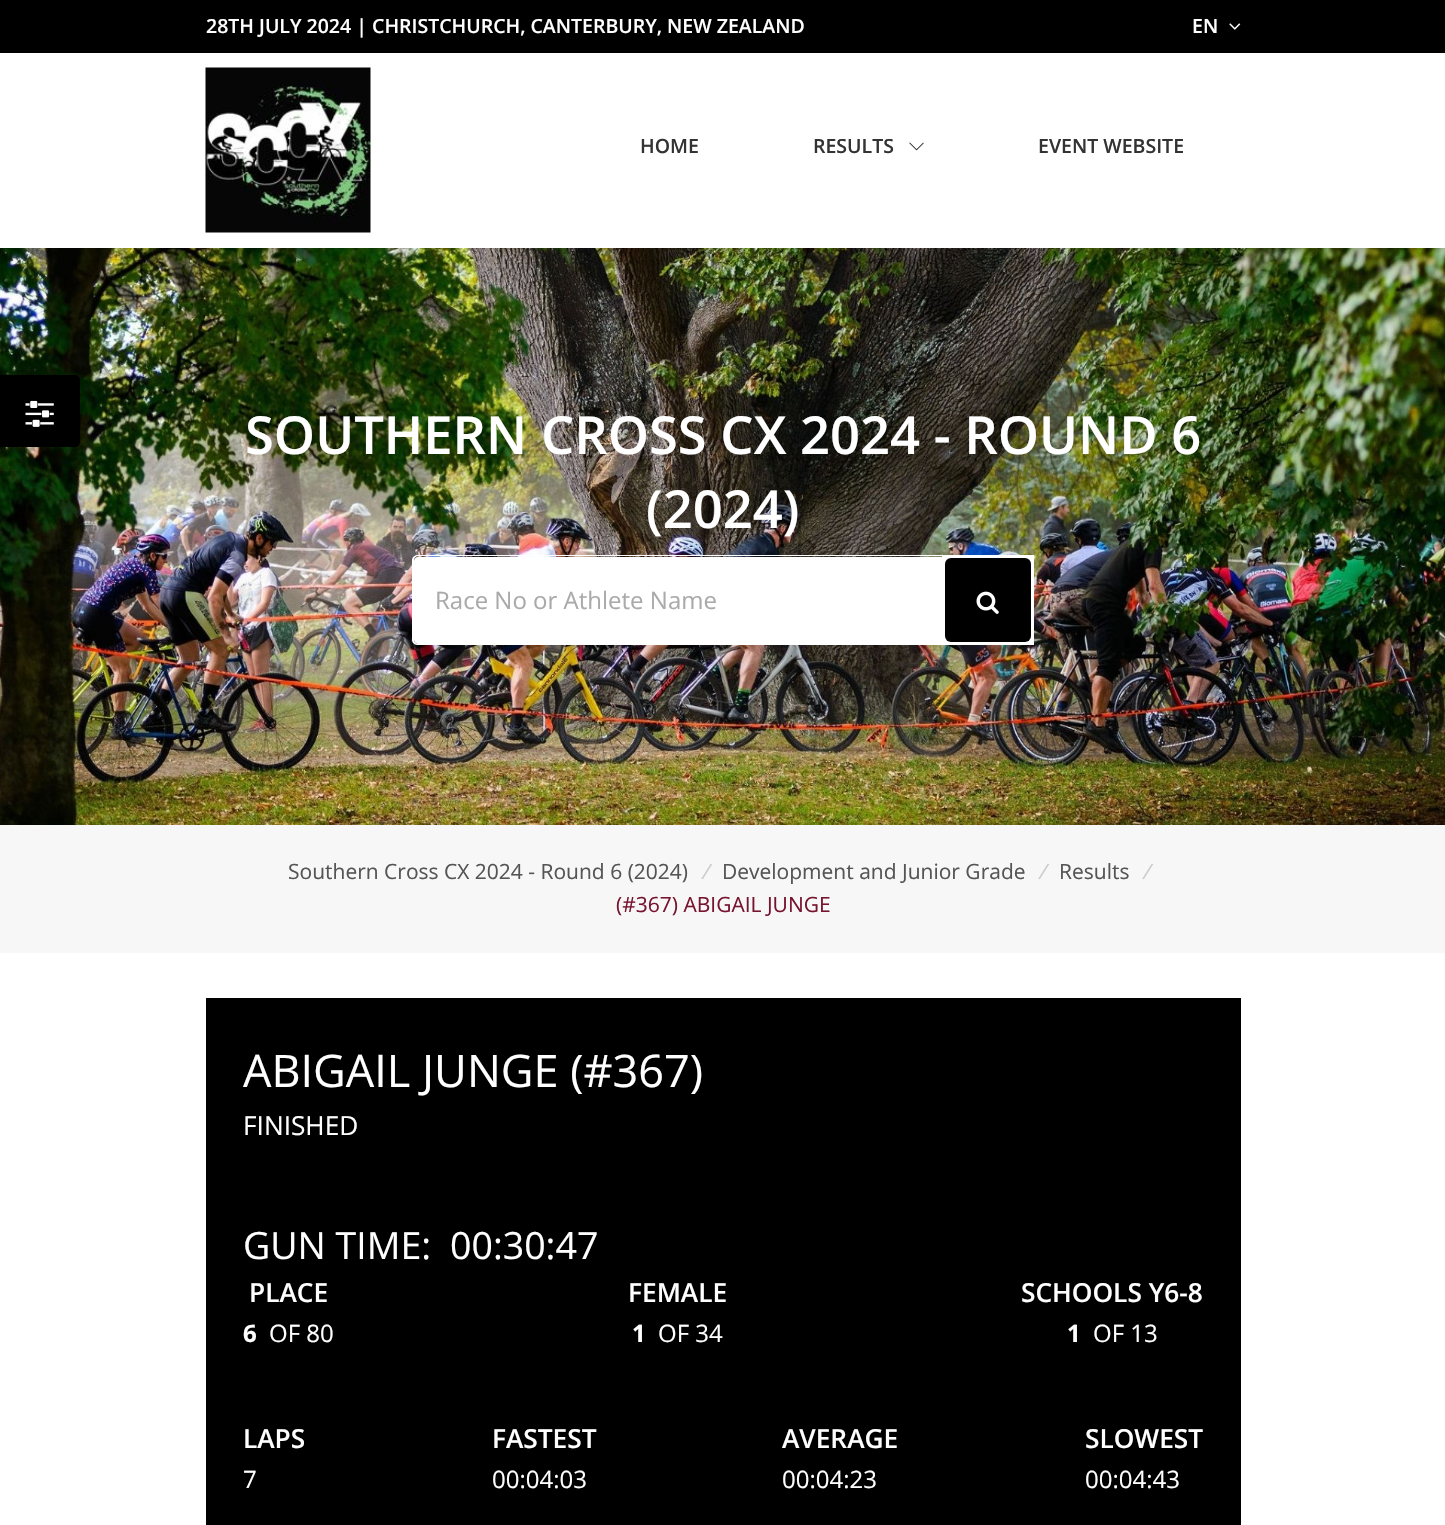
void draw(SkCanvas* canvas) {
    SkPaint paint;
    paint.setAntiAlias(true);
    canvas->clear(0xFFFFFFFF);
    paint.setColor(0xFF000000);
    canvas->drawRect(SkRect::MakeXYWH(0, 0, 1445, 53), paint);
    SkFont font1(fontMgr->matchFamilyStyle("Open Sans", SkFontStyle(600, SkFontStyle::kNormal_Width, SkFontStyle::kUpright_Slant)), 19.5f);
    font1.setSubpixel(true);
    paint.setColor(0xFFFFFFFF);
    canvas->drawString("28TH JULY 2024 | CHRISTCHURCH, CANTERBURY, NEW ZEALAND", 206, 33, font1, paint);
    canvas->drawString("EN", 1192, 33, font1, paint);
    canvas->drawImageRect(SkImages::DeferredFromEncodedData(SkData::MakeFromFileName("img1.png")), SkRect::MakeXYWH(1229, 23, 12, 7), SkSamplingOptions());
    canvas->drawImageRect(SkImages::DeferredFromEncodedData(SkData::MakeFromFileName("img2.png")), SkRect::MakeXYWH(205, 67, 166, 166), SkSamplingOptions());
    paint.setColor(0xFF333333);
    canvas->drawString("HOME", 640, 153, font1, paint);
    canvas->drawString("RESULTS", 813, 153, font1, paint);
    canvas->drawImageRect(SkImages::DeferredFromEncodedData(SkData::MakeFromFileName("img3.png")), SkRect::MakeXYWH(909, 142, 15, 9), SkSamplingOptions());
    canvas->drawString("EVENT WEBSITE", 1038, 153, font1, paint);
    canvas->drawImageRect(SkImages::DeferredFromEncodedData(SkData::MakeFromFileName("img5.png")), SkRect::MakeXYWH(0, 248, 1445, 577), SkSamplingOptions());
    paint.setColor(0xFF000000);
    canvas->drawPath(SkPathBuilder().moveTo(0, 375).lineTo(75, 375).cubicTo(78, 375, 80, 377, 80, 380).lineTo(80, 442).cubicTo(80, 445, 78, 447, 75, 447).lineTo(0, 447).close().detach(), paint);
    canvas->drawImageRect(SkImages::DeferredFromEncodedData(SkData::MakeFromFileName("img4.png")), SkRect::MakeXYWH(25, 400, 29, 27), SkSamplingOptions());
    SkFont font2(fontMgr->matchFamilyStyle("Open Sans", SkFontStyle(600, SkFontStyle::kNormal_Width, SkFontStyle::kUpright_Slant)), 52.5f);
    font2.setSubpixel(true);
    paint.setColor(0xFFFFFFFF);
    canvas->drawString("SOUTHERN CROSS CX 2024 - ROUND 6", 245, 454, font2, paint);
    canvas->drawString("(2024)", 646, 528, font2, paint);
    paint.setColor(0x17000000);
    paint.setMaskFilter(SkMaskFilter::MakeBlur(kNormal_SkBlurStyle, 19));
    canvas->drawRect(SkRect::MakeXYWH(431, 603, 585, 54), paint);
    paint.setMaskFilter(nullptr);
    paint.setColor(0xFFFFFFFF);
    canvas->drawPath(SkPathBuilder().moveTo(418, 557).lineTo(942, 557).lineTo(942, 644).lineTo(418, 644).cubicTo(416, 644, 414, 642, 414, 640).lineTo(414, 561).cubicTo(414, 559, 416, 557, 418, 557).close().detach(), paint);
    canvas->drawPath(SkPathBuilder(SkPathFillType::kEvenOdd).moveTo(418, 555).lineTo(942, 555).lineTo(942, 645).lineTo(418, 645).cubicTo(415, 645, 412, 643, 412, 640).lineTo(412, 560).cubicTo(412, 557, 415, 555, 418, 555).close().moveTo(418, 556).lineTo(942, 556).lineTo(942, 644).lineTo(418, 644).cubicTo(416, 644, 414, 642, 414, 640).lineTo(414, 560).cubicTo(414, 558, 416, 556, 418, 556).close().detach(), paint);
    SkFont font3(fontMgr->matchFamilyStyle("Open Sans", SkFontStyle::Normal()), 24);
    font3.setSubpixel(true);
    paint.setColor(0xFFAAAAAA);
    canvas->drawString("Race No or Athlete Name", 435, 609, font3, paint);
    paint.setColor(0xFFFFFFFF);
    canvas->drawRect(SkRect::MakeXYWH(942, 555, 92, 90), paint);
    paint.setColor(0xFF000000);
    canvas->drawRoundRect(SkRect::MakeXYWH(945, 558, 86, 84), 6, 6, paint);
    canvas->drawImageRect(SkImages::DeferredFromEncodedData(SkData::MakeFromFileName("img6.png")), SkRect::MakeXYWH(976, 591, 23, 23), SkSamplingOptions());
    paint.setColor(0xFFF7F7F7);
    canvas->drawRect(SkRect::MakeXYWH(0, 825, 1445, 128), paint);
    SkFont font4(fontMgr->matchFamilyStyle("Open Sans", SkFontStyle::Normal()), 21);
    font4.setSubpixel(true);
    paint.setColor(0xFF555555);
    canvas->drawString("Southern Cross CX 2024 - Round 6 (2024)", 288, 879, font4, paint);
    SkFont font5(fontMgr->matchFamilyStyle("Open Sans", SkFontStyle::Italic()), 21);
    font5.setSubpixel(true);
    paint.setColor(0xFFCCCCCC);
    canvas->drawString("/", 701, 879, font5, paint);
    paint.setColor(0xFF555555);
    canvas->drawString("Development and Junior Grade", 722, 879, font4, paint);
    paint.setColor(0xFFCCCCCC);
    canvas->drawString("/", 1038, 879, font5, paint);
    paint.setColor(0xFF555555);
    canvas->drawString("Results", 1059, 879, font4, paint);
    paint.setColor(0xFFCCCCCC);
    canvas->drawString("/", 1142, 879, font5, paint);
    paint.setColor(0xFF77142E);
    canvas->drawString("(#367) ABIGAIL JUNGE", 616, 912, font4, paint);
    paint.setColor(0xFF000000);
    canvas->drawRect(SkRect::MakeXYWH(206, 998, 1035, 527), paint);
    SkFont font6(fontMgr->matchFamilyStyle("Open Sans", SkFontStyle::Normal()), 45);
    font6.setSubpixel(true);
    paint.setColor(0xFFFFFFFF);
    canvas->drawString("ABIGAIL JUNGE (#367)", 243, 1087, font6, paint);
    SkFont font7(fontMgr->matchFamilyStyle("Open Sans", SkFontStyle::Normal()), 26.25f);
    font7.setSubpixel(true);
    canvas->drawString("FINISHED", 243, 1135, font7, paint);
    SkFont font8(fontMgr->matchFamilyStyle("Open Sans", SkFontStyle::Normal()), 37.5f);
    font8.setSubpixel(true);
    canvas->drawString("GUN TIME:", 243, 1259, font8, paint);
    canvas->drawString("00:30:47", 450, 1259, font8, paint);
    SkFont font9(fontMgr->matchFamilyStyle("Open Sans", SkFontStyle(600, SkFontStyle::kNormal_Width, SkFontStyle::kUpright_Slant)), 26.25f);
    font9.setSubpixel(true);
    canvas->drawString("PLACE", 249, 1302, font9, paint);
    SkFont font10(fontMgr->matchFamilyStyle("Open Sans", SkFontStyle::Bold()), 24);
    font10.setSubpixel(true);
    canvas->drawString("6", 243, 1342, font10, paint);
    canvas->drawString("OF 80", 269, 1342, font3, paint);
    canvas->drawString("FEMALE", 628, 1302, font9, paint);
    canvas->drawString("1", 632, 1342, font10, paint);
    canvas->drawString("OF 34", 658, 1342, font3, paint);
    canvas->drawString("SCHOOLS Y6-8", 1021, 1302, font9, paint);
    canvas->drawString("1", 1067, 1342, font10, paint);
    canvas->drawString("OF 13", 1093, 1342, font3, paint);
    canvas->drawString("LAPS", 243, 1448, font9, paint);
    canvas->drawString("7", 243, 1488, font3, paint);
    canvas->drawString("FASTEST", 492, 1448, font9, paint);
    canvas->drawString("00:04:03", 492, 1488, font3, paint);
    canvas->drawString("AVERAGE", 782, 1448, font9, paint);
    canvas->drawString("00:04:23", 782, 1488, font3, paint);
    canvas->drawString("SLOWEST", 1085, 1448, font9, paint);
    canvas->drawString("00:04:43", 1085, 1488, font3, paint);
}
